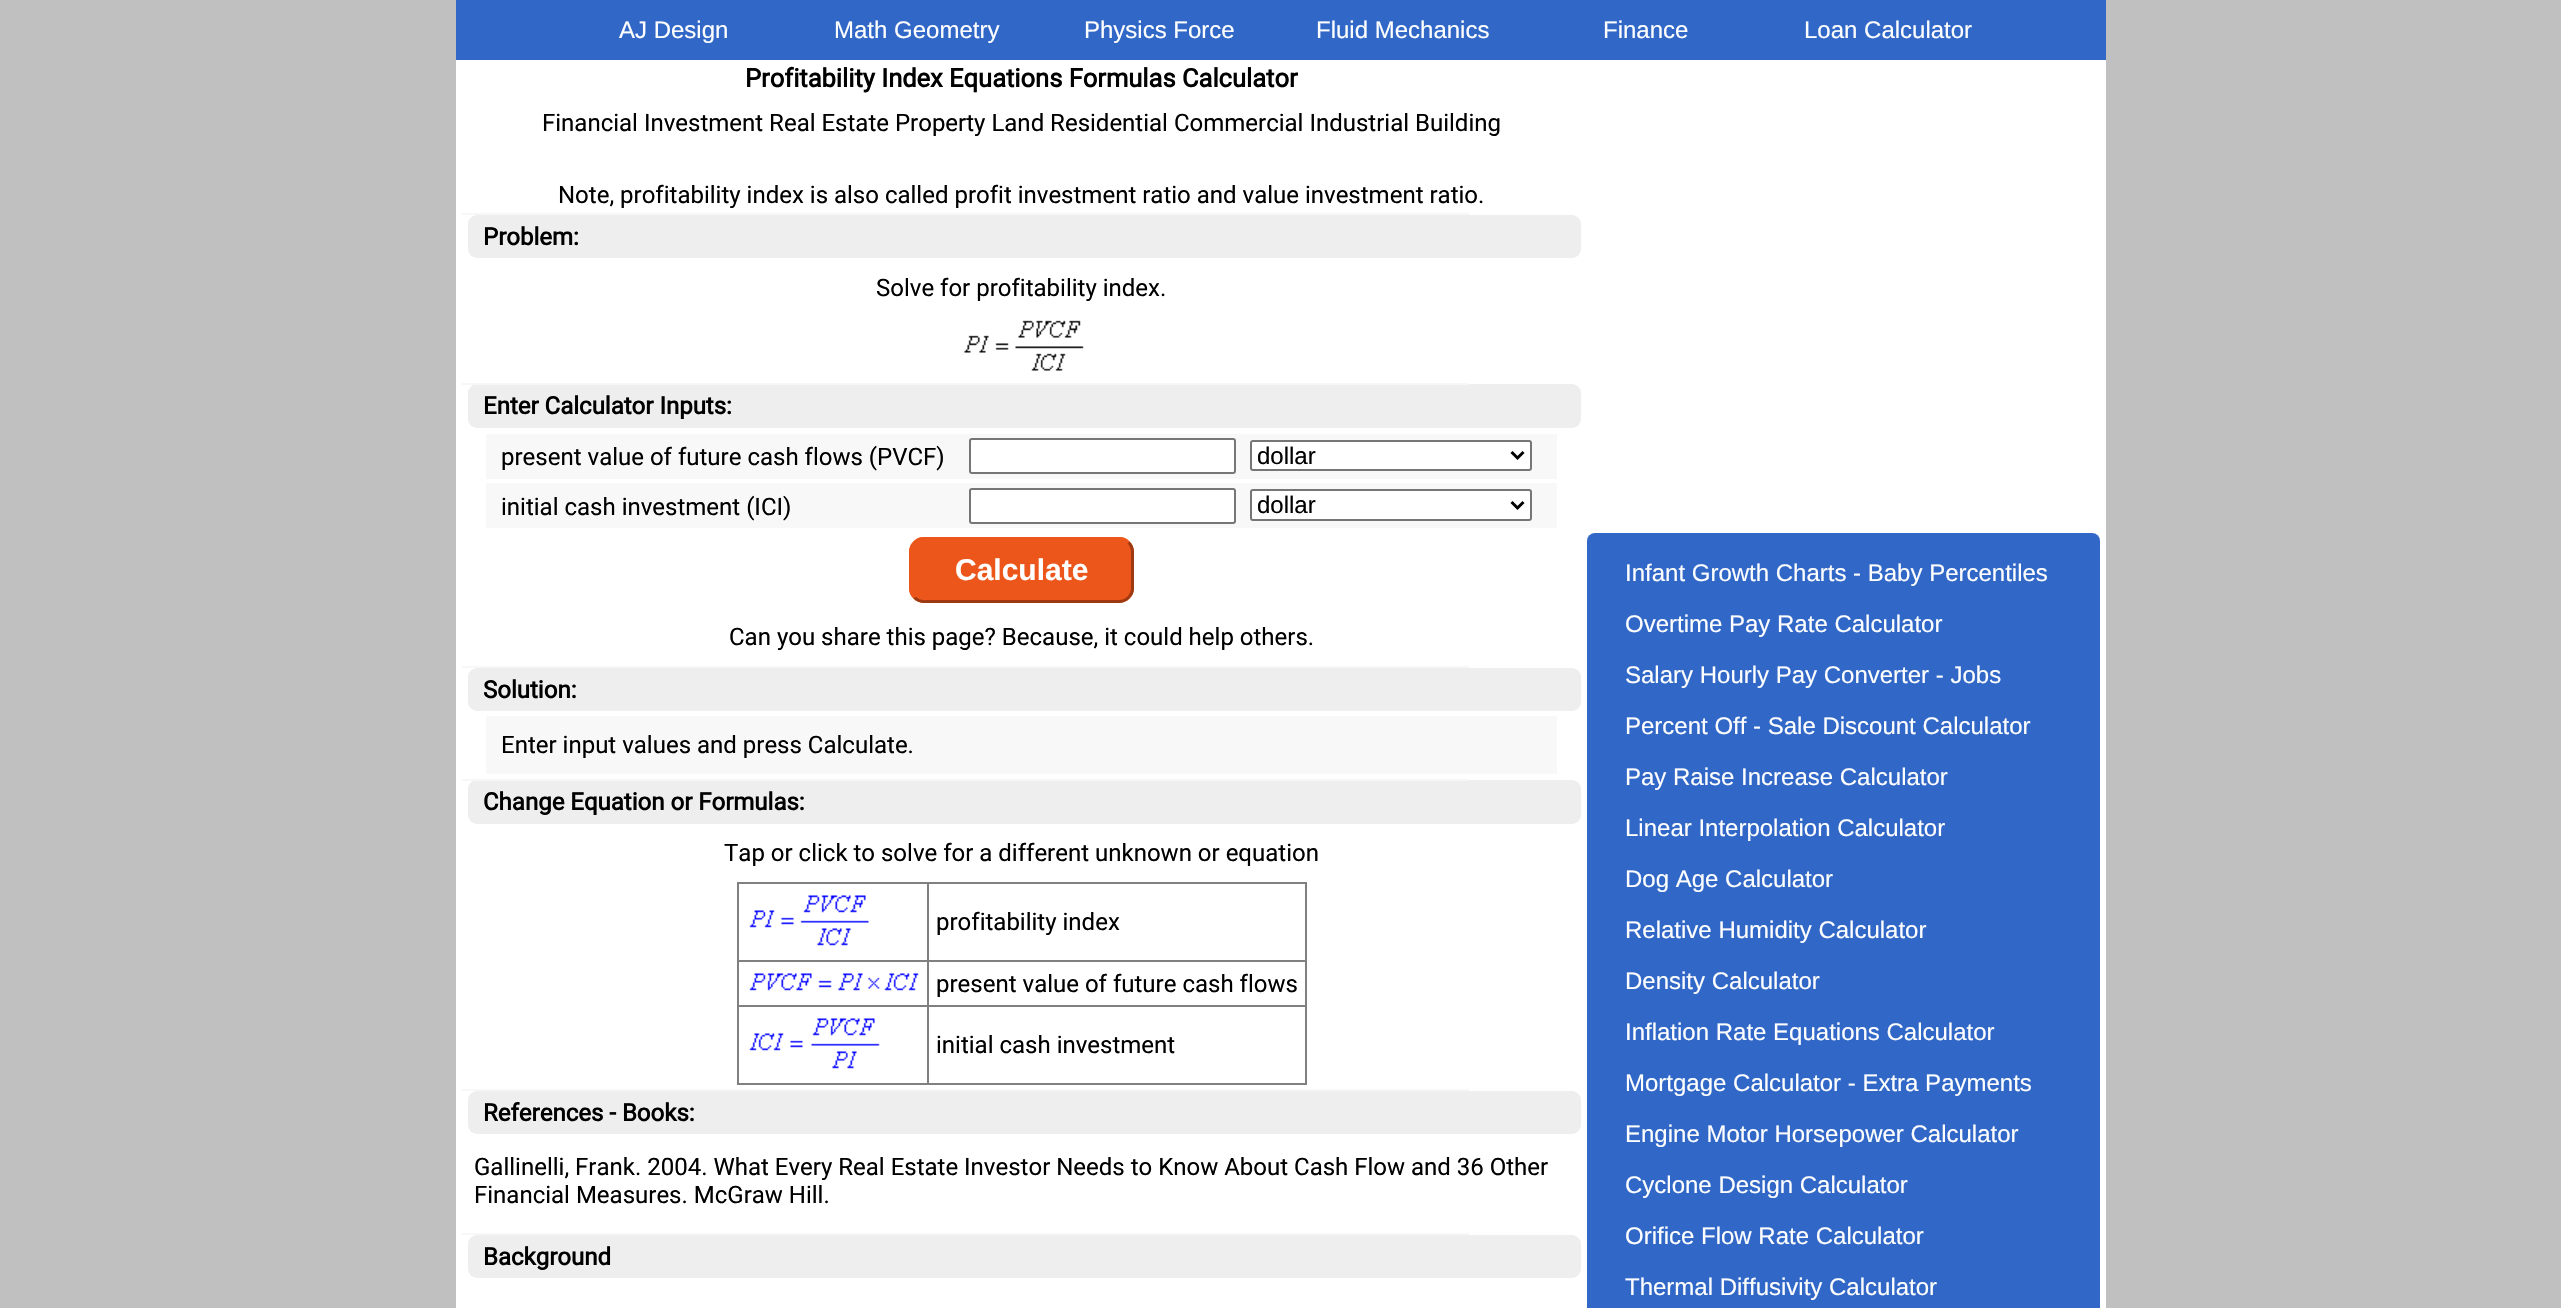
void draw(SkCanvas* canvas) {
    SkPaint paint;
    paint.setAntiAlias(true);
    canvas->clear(0xFFC0C0C0);
    paint.setColor(0xFFFFFFFF);
    canvas->drawRect(SkRect::MakeXYWH(456, 60, 1650, 1248), paint);
    paint.setColor(0xFF3168C7);
    canvas->drawRect(SkRect::MakeXYWH(456, 0, 1650, 60), paint);
    SkFont font1(fontMgr->matchFamilyStyle("Liberation Sans", SkFontStyle::Normal()), 24);
    font1.setSubpixel(true);
    paint.setColor(0xFFFFFFFF);
    canvas->drawString("AJ Design", 619, 38, font1, paint);
    canvas->drawString("Math Geometry", 834, 38, font1, paint);
    canvas->drawString("Physics Force", 1084, 38, font1, paint);
    canvas->drawString("Fluid Mechanics", 1316, 38, font1, paint);
    canvas->drawString("Finance", 1603, 38, font1, paint);
    canvas->drawString("Loan Calculator", 1804, 38, font1, paint);
    SkFont font2(fontMgr->matchFamilyStyle("Roboto", SkFontStyle::Bold()), 25.5f);
    font2.setSubpixel(true);
    paint.setColor(0xFF000000);
    canvas->drawString("Profitability Index Equations Formulas Calculator", 745, 87, font2, paint);
    SkFont font3(fontMgr->matchFamilyStyle("Roboto", SkFontStyle::Normal()), 24);
    font3.setSubpixel(true);
    canvas->drawString("Financial Investment Real Estate Property Land Residential Commercial Industrial Building", 542, 131, font3, paint);
    canvas->drawString("Note, profitability index is also called profit investment ratio and value investment ratio.", 558, 203, font3, paint);
    paint.setColor(0xFFF7F7F7);
    canvas->drawRect(SkRect::MakeXYWH(462, 213, 1007, 2), paint);
    paint.setColor(0xFFEEEEEE);
    canvas->drawRoundRect(SkRect::MakeXYWH(468, 215, 1113, 43), 9, 9, paint);
    SkFont font4(fontMgr->matchFamilyStyle("Roboto", SkFontStyle::Bold()), 24);
    font4.setSubpixel(true);
    paint.setColor(0xFF000000);
    canvas->drawString("Problem:", 483, 245, font4, paint);
    canvas->drawString("Solve for profitability index.", 876, 296, font3, paint);
    canvas->drawImageRect(SkImages::DeferredFromEncodedData(SkData::MakeFromFileName("img1.png")), SkRect::MakeXYWH(964, 320, 120, 51), SkSamplingOptions());
    paint.setColor(0xFFEEEEEE);
    canvas->drawRoundRect(SkRect::MakeXYWH(468, 384, 1113, 44), 9, 9, paint);
    paint.setColor(0xFFF7F7F7);
    canvas->drawRect(SkRect::MakeXYWH(462, 383, 1007, 2), paint);
    paint.setColor(0xFF000000);
    canvas->drawString("Enter Calculator Inputs:", 483, 414, font4, paint);
    paint.setColor(0xFFF8F8F8);
    canvas->drawRect(SkRect::MakeXYWH(486, 434, 1071, 45), paint);
    paint.setColor(0xFF000000);
    canvas->drawString("present value of future cash flows (PVCF)", 501, 465, font3, paint);
    paint.setColor(0xFFFFFFFF);
    canvas->drawRoundRect(SkRect::MakeXYWH(970, 439, 265, 34), 2, 2, paint);
    paint.setStyle(SkPaint::kStroke_Style);
    paint.setStrokeWidth(2);
    paint.setColor(0xFF767676);
    canvas->drawRoundRect(SkRect::MakeXYWH(970, 439, 265, 34), 2, 2, paint);
    paint.setStyle(SkPaint::kFill_Style);
    paint.setColor(0xFFFFFFFF);
    canvas->drawRoundRect(SkRect::MakeXYWH(1251, 441, 280, 29), 2, 2, paint);
    paint.setStyle(SkPaint::kStroke_Style);
    paint.setColor(0xFF767676);
    canvas->drawRoundRect(SkRect::MakeXYWH(1251, 441, 280, 29), 2, 2, paint);
    paint.setStrokeWidth(3);
    paint.setColor(0xFF000000);
    canvas->drawPath(SkPathBuilder().moveTo(1511.5f, 452).lineTo(1517.5f, 458).lineTo(1523.5f, 452).detach(), paint);
    paint.setStyle(SkPaint::kFill_Style);
    canvas->drawString("dollar", 1257, 464, font1, paint);
    paint.setColor(0xFFF8F8F8);
    canvas->drawRect(SkRect::MakeXYWH(486, 483, 1071, 45), paint);
    paint.setColor(0xFF000000);
    canvas->drawString("initial cash investment (ICI)", 501, 515, font3, paint);
    paint.setColor(0xFFFFFFFF);
    canvas->drawRoundRect(SkRect::MakeXYWH(970, 489, 265, 34), 2, 2, paint);
    paint.setStyle(SkPaint::kStroke_Style);
    paint.setStrokeWidth(2);
    paint.setColor(0xFF767676);
    canvas->drawRoundRect(SkRect::MakeXYWH(970, 489, 265, 34), 2, 2, paint);
    paint.setStyle(SkPaint::kFill_Style);
    paint.setColor(0xFFFFFFFF);
    canvas->drawRoundRect(SkRect::MakeXYWH(1251, 490, 280, 30), 2, 2, paint);
    paint.setStyle(SkPaint::kStroke_Style);
    paint.setColor(0xFF767676);
    canvas->drawRoundRect(SkRect::MakeXYWH(1251, 490, 280, 30), 2, 2, paint);
    paint.setStrokeWidth(3);
    paint.setColor(0xFF000000);
    canvas->drawPath(SkPathBuilder().moveTo(1511.5f, 502).lineTo(1517.5f, 508).lineTo(1523.5f, 502).detach(), paint);
    paint.setStyle(SkPaint::kFill_Style);
    canvas->drawString("dollar", 1257, 513, font1, paint);
    paint.setColor(0xFFED561B);
    canvas->drawRoundRect(SkRect::MakeXYWH(909, 537, 225, 66), 15, 15, paint);
    paint.setStyle(SkPaint::kStroke_Style);
    paint.setColor(0xFF9E3912);
    canvas->drawPath(SkPathBuilder().moveTo(1128.5f, 542.5f).cubicTo(1131, 545, 1132.5f, 548.5f, 1132.5f, 552).lineTo(1132.5f, 588).cubicTo(1132.5f, 591.5f, 1131, 595, 1128.5f, 597.5f).cubicTo(1126, 600, 1122.5f, 601.5f, 1119, 601.5f).lineTo(924, 601.5f).cubicTo(920.5f, 601.5f, 917, 600, 914.5f, 597.5f).detach(), paint);
    paint.setColor(0xFFED561B);
    canvas->drawPath(SkPathBuilder().moveTo(914.5f, 597.5f).cubicTo(912, 595, 910.5f, 591.5f, 910.5f, 588).lineTo(910.5f, 552).cubicTo(910.5f, 548.5f, 912, 545, 914.5f, 542.5f).cubicTo(917, 540, 920.5f, 538.5f, 924, 538.5f).lineTo(1119, 538.5f).cubicTo(1122.5f, 538.5f, 1126, 540, 1128.5f, 542.5f).detach(), paint);
    SkFont font5(fontMgr->matchFamilyStyle("Liberation Sans", SkFontStyle::Bold()), 30);
    font5.setSubpixel(true);
    paint.setStyle(SkPaint::kFill_Style);
    paint.setColor(0xFFFFFFFF);
    canvas->drawString("Calculate", 955, 580, font5, paint);
    paint.setColor(0xFF000000);
    canvas->drawString("Can you share this page? Because, it could help others.", 729, 645, font3, paint);
    paint.setColor(0xFFF7F7F7);
    canvas->drawRect(SkRect::MakeXYWH(462, 666, 1007, 2), paint);
    paint.setColor(0xFFEEEEEE);
    canvas->drawRoundRect(SkRect::MakeXYWH(468, 668, 1113, 43), 9, 9, paint);
    paint.setColor(0xFF000000);
    canvas->drawString("Solution:", 483, 698, font4, paint);
    paint.setColor(0xFFF8F8F8);
    canvas->drawRect(SkRect::MakeXYWH(486, 716, 1071, 58), paint);
    paint.setColor(0xFF000000);
    canvas->drawString("Enter input values and press Calculate.", 501, 753, font3, paint);
    paint.setColor(0xFFEEEEEE);
    canvas->drawRoundRect(SkRect::MakeXYWH(468, 780, 1113, 44), 9, 9, paint);
    paint.setColor(0xFFF7F7F7);
    canvas->drawRect(SkRect::MakeXYWH(462, 779, 1007, 2), paint);
    paint.setColor(0xFF000000);
    canvas->drawString("Change Equation or Formulas:", 483, 810, font4, paint);
    canvas->drawString("Tap or click to solve for a different unknown or equation", 724, 861, font3, paint);
    paint.setColor(0xFF808080);
    canvas->drawRect(SkRect::MakeXYWH(927, 882, 380, 2), paint);
    canvas->drawRect(SkRect::MakeXYWH(927, 960, 380, 2), paint);
    canvas->drawRect(SkRect::MakeXYWH(927, 1005, 380, 2), paint);
    canvas->drawRect(SkRect::MakeXYWH(1305, 1005, 2, 80), paint);
    canvas->drawRect(SkRect::MakeXYWH(927, 1083, 380, 2), paint);
    canvas->drawRect(SkRect::MakeXYWH(927, 1005, 2, 80), paint);
    canvas->drawRect(SkRect::MakeXYWH(737, 1005, 192, 2), paint);
    canvas->drawRect(SkRect::MakeXYWH(927, 960, 2, 47), paint);
    canvas->drawRect(SkRect::MakeXYWH(737, 960, 192, 2), paint);
    canvas->drawRect(SkRect::MakeXYWH(927, 882, 2, 80), paint);
    canvas->drawRect(SkRect::MakeXYWH(737, 882, 192, 2), paint);
    canvas->drawRect(SkRect::MakeXYWH(737, 1083, 192, 2), paint);
    canvas->drawRect(SkRect::MakeXYWH(737, 1005, 2, 80), paint);
    canvas->drawRect(SkRect::MakeXYWH(737, 960, 2, 47), paint);
    canvas->drawRect(SkRect::MakeXYWH(737, 882, 2, 80), paint);
    canvas->drawImageRect(SkImages::DeferredFromEncodedData(SkData::MakeFromFileName("img2.png")), SkRect::MakeXYWH(749, 895, 120, 51), SkSamplingOptions());
    canvas->drawRect(SkRect::MakeXYWH(1305, 960, 2, 47), paint);
    canvas->drawRect(SkRect::MakeXYWH(1305, 882, 2, 80), paint);
    paint.setColor(0xFF000000);
    canvas->drawString("profitability index", 936, 930, font3, paint);
    canvas->drawImageRect(SkImages::DeferredFromEncodedData(SkData::MakeFromFileName("img3.png")), SkRect::MakeXYWH(749, 973, 170, 18), SkSamplingOptions());
    canvas->drawString("present value of future cash flows", 936, 992, font3, paint);
    canvas->drawImageRect(SkImages::DeferredFromEncodedData(SkData::MakeFromFileName("img4.png")), SkRect::MakeXYWH(749, 1018, 131, 51), SkSamplingOptions());
    canvas->drawString("initial cash investment", 936, 1053, font3, paint);
    paint.setColor(0xFFF7F7F7);
    canvas->drawRect(SkRect::MakeXYWH(462, 1089, 1007, 2), paint);
    paint.setColor(0xFFEEEEEE);
    canvas->drawRoundRect(SkRect::MakeXYWH(468, 1091, 1113, 43), 9, 9, paint);
    paint.setColor(0xFF000000);
    canvas->drawString("References - Books:", 483, 1121, font4, paint);
    canvas->drawString("Gallinelli, Frank. 2004. What Every Real Estate Investor Needs to Know About Cash Flow and 36 Other", 474, 1175, font3, paint);
    canvas->drawString("Financial Measures. McGraw Hill.", 474, 1203, font3, paint);
    paint.setColor(0xFFF7F7F7);
    canvas->drawRect(SkRect::MakeXYWH(462, 1233, 1007, 2), paint);
    paint.setColor(0xFFEEEEEE);
    canvas->drawRoundRect(SkRect::MakeXYWH(468, 1235, 1113, 43), 9, 9, paint);
    paint.setColor(0xFF000000);
    canvas->drawString("Background", 483, 1265, font4, paint);
    paint.setColor(0xFF3168C7);
    canvas->drawRoundRect(SkRect::MakeXYWH(1587, 533, 513, 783), 8, 8, paint);
    paint.setColor(0xFFFFFFFF);
    canvas->drawString("Infant Growth Charts - Baby Percentiles", 1625, 581, font1, paint);
    canvas->drawString("Overtime Pay Rate Calculator", 1625, 632, font1, paint);
    canvas->drawString("Salary Hourly Pay Converter - Jobs", 1625, 683, font1, paint);
    canvas->drawString("Percent Off - Sale Discount Calculator", 1625, 734, font1, paint);
    canvas->drawString("Pay Raise Increase Calculator", 1625, 785, font1, paint);
    canvas->drawString("Linear Interpolation Calculator", 1625, 836, font1, paint);
    canvas->drawString("Dog Age Calculator", 1625, 887, font1, paint);
    canvas->drawString("Relative Humidity Calculator", 1625, 938, font1, paint);
    canvas->drawString("Density Calculator", 1625, 989, font1, paint);
    canvas->drawString("Inflation Rate Equations Calculator", 1625, 1040, font1, paint);
    canvas->drawString("Mortgage Calculator - Extra Payments", 1625, 1091, font1, paint);
    canvas->drawString("Engine Motor Horsepower Calculator", 1625, 1142, font1, paint);
    canvas->drawString("Cyclone Design Calculator", 1625, 1193, font1, paint);
    canvas->drawString("Orifice Flow Rate Calculator", 1625, 1244, font1, paint);
    canvas->drawString("Thermal Diffusivity Calculator", 1625, 1295, font1, paint);
}
